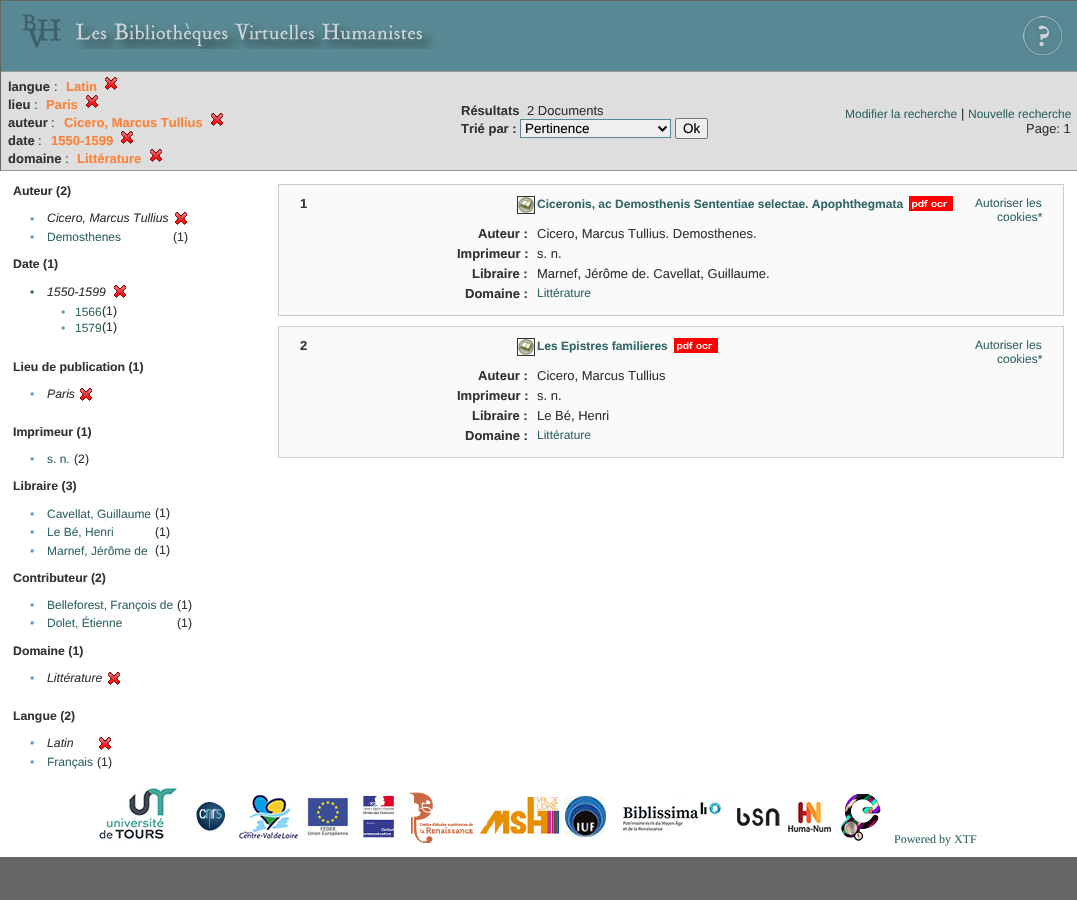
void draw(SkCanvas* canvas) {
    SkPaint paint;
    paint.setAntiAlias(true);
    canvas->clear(0xFF666666);
    paint.setColor(0xFF598995);
    canvas->drawRect(SkRect::MakeXYWH(1, 1, 1076, 70), paint);
    canvas->drawImageRect(SkImages::DeferredFromEncodedData(SkData::MakeFromFileName("img1.png")), SkRect::MakeXYWH(21, 12, 417, 37), SkSamplingOptions());
    canvas->drawImageRect(SkImages::DeferredFromEncodedData(SkData::MakeFromFileName("img2.png")), SkRect::MakeXYWH(1023, 16, 40, 40), SkSamplingOptions());
    paint.setColor(0xFFDEDEDF);
    canvas->drawRect(SkRect::MakeXYWH(1, 72, 1076, 98), paint);
    paint.setColor(0xFF999999);
    canvas->drawRect(SkRect::MakeXYWH(0, 71, 1077, 1), paint);
    canvas->drawRect(SkRect::MakeXYWH(0, 170, 1077, 1), paint);
    paint.setColor(0xFF666666);
    canvas->drawRect(SkRect::MakeXYWH(0, 71, 1, 100), paint);
    SkFont font1(fontMgr->matchFamilyStyle("Liberation Sans", SkFontStyle::Bold()), 13);
    font1.setSubpixel(true);
    paint.setColor(0xFF333333);
    canvas->drawString("langue", 8, 91, font1, paint);
    SkFont font2(fontMgr->matchFamilyStyle("Liberation Sans", SkFontStyle::Normal()), 13);
    font2.setSubpixel(true);
    canvas->drawString(":", 54, 91, font2, paint);
    paint.setColor(0xFFFD8239);
    canvas->drawString("Latin", 66, 91, font1, paint);
    canvas->drawImageRect(SkImages::DeferredFromEncodedData(SkData::MakeFromFileName("img3.png")), SkRect::MakeXYWH(105, 77, 12, 13), SkSamplingOptions());
    paint.setColor(0xFF333333);
    canvas->drawString("lieu", 8, 109, font1, paint);
    canvas->drawString(":", 34, 109, font2, paint);
    paint.setColor(0xFFFD8239);
    canvas->drawString("Paris", 46, 109, font1, paint);
    canvas->drawImageRect(SkImages::DeferredFromEncodedData(SkData::MakeFromFileName("img3.png")), SkRect::MakeXYWH(86, 95, 12, 13), SkSamplingOptions());
    paint.setColor(0xFF333333);
    canvas->drawString("auteur", 8, 127, font1, paint);
    canvas->drawString(":", 51, 127, font2, paint);
    paint.setColor(0xFFFD8239);
    canvas->drawString("Cicero, Marcus Tullius", 64, 127, font1, paint);
    canvas->drawImageRect(SkImages::DeferredFromEncodedData(SkData::MakeFromFileName("img3.png")), SkRect::MakeXYWH(211, 113, 12, 13), SkSamplingOptions());
    paint.setColor(0xFF333333);
    canvas->drawString("date", 8, 145, font1, paint);
    canvas->drawString(":", 38, 145, font2, paint);
    paint.setColor(0xFFFD8239);
    canvas->drawString("1550-1599", 51, 145, font1, paint);
    canvas->drawImageRect(SkImages::DeferredFromEncodedData(SkData::MakeFromFileName("img3.png")), SkRect::MakeXYWH(121, 131, 12, 13), SkSamplingOptions());
    paint.setColor(0xFF333333);
    canvas->drawString("domaine", 8, 163, font1, paint);
    canvas->drawString(":", 65, 163, font2, paint);
    paint.setColor(0xFFFD8239);
    canvas->drawString("Littérature", 77, 163, font1, paint);
    canvas->drawImageRect(SkImages::DeferredFromEncodedData(SkData::MakeFromFileName("img3.png")), SkRect::MakeXYWH(150, 149, 12, 13), SkSamplingOptions());
    paint.setColor(0xFF333333);
    canvas->drawString("Résultats", 461, 115, font1, paint);
    canvas->drawString("2 Documents", 527, 115, font2, paint);
    canvas->drawString("Trié par :", 461, 133, font1, paint);
    paint.setColor(0xFFEFEFEF);
    canvas->drawRect(SkRect::MakeXYWH(520.5f, 119.5f, 150, 18), paint);
    paint.setStyle(SkPaint::kStroke_Style);
    paint.setStrokeWidth(1);
    paint.setColor(0xFF598995);
    canvas->drawRect(SkRect::MakeXYWH(520.5f, 119.5f, 150, 18), paint);
    paint.setStrokeWidth(2);
    paint.setColor(0xFF000000);
    canvas->drawPath(SkPathBuilder().moveTo(658.5f, 126.5f).lineTo(662.5f, 130.5f).lineTo(666.5f, 126.5f).detach(), paint);
    SkFont font3(fontMgr->matchFamilyStyle("Liberation Sans", SkFontStyle::Normal()), 13.5f);
    font3.setSubpixel(true);
    paint.setStyle(SkPaint::kFill_Style);
    canvas->drawString("Pertinence", 525, 133, font3, paint);
    paint.setColor(0xFFEFEFEF);
    canvas->drawRoundRect(SkRect::MakeXYWH(675.5f, 118.5f, 32, 20), 1.5f, 1.5f, paint);
    paint.setStyle(SkPaint::kStroke_Style);
    paint.setStrokeWidth(1);
    paint.setColor(0xFF767676);
    canvas->drawRoundRect(SkRect::MakeXYWH(675.5f, 118.5f, 32, 20), 1.5f, 1.5f, paint);
    paint.setStyle(SkPaint::kFill_Style);
    paint.setColor(0xFF000000);
    canvas->drawString("Ok", 683, 133, font3, paint);
    SkFont font4(fontMgr->matchFamilyStyle("Liberation Sans", SkFontStyle::Normal()), 12);
    font4.setSubpixel(true);
    paint.setColor(0xFF336666);
    canvas->drawString("Modifier la recherche", 845, 118, font4, paint);
    paint.setColor(0xFF333333);
    canvas->drawString("|", 961, 118, font2, paint);
    paint.setColor(0xFF336666);
    canvas->drawString("Nouvelle recherche", 968, 118, font4, paint);
    paint.setColor(0xFF333333);
    canvas->drawString("Page: 1", 1026, 133, font2, paint);
    paint.setColor(0xFFFFFFFF);
    canvas->drawRect(SkRect::MakeXYWH(0, 171, 1077, 686), paint);
    SkFont font5(fontMgr->matchFamilyStyle("Liberation Sans", SkFontStyle::Bold()), 12.3f);
    font5.setSubpixel(true);
    paint.setColor(0xFF333333);
    canvas->drawString("Auteur (2)", 13, 195, font5, paint);
    SkFont font6(fontMgr->matchFamilyStyle("Liberation Sans", SkFontStyle::Normal()), 12.3f);
    font6.setSubpixel(true);
    paint.setColor(0xFF6699CC);
    canvas->drawString("•", 30, 223, font6, paint);
    SkFont font7(fontMgr->matchFamilyStyle("Liberation Sans", SkFontStyle::Italic()), 12.3f);
    font7.setSubpixel(true);
    paint.setColor(0xFF333333);
    canvas->drawString("Cicero, Marcus Tullius", 47, 222, font7, paint);
    canvas->drawImageRect(SkImages::DeferredFromEncodedData(SkData::MakeFromFileName("img4.png")), SkRect::MakeXYWH(175, 212, 12, 13), SkSamplingOptions());
    paint.setColor(0xFF6699CC);
    canvas->drawString("•", 30, 241, font6, paint);
    paint.setColor(0xFF336666);
    canvas->drawString("Demosthenes", 47, 241, font4, paint);
    paint.setColor(0xFF333333);
    canvas->drawString("(1)", 173, 241, font6, paint);
    canvas->drawString("Date (1)", 13, 268, font5, paint);
    paint.setColor(0xFF336666);
    canvas->drawString("•", 30, 296, font4, paint);
    paint.setColor(0xFF333333);
    canvas->drawString("1550-1599", 47, 296, font7, paint);
    canvas->drawImageRect(SkImages::DeferredFromEncodedData(SkData::MakeFromFileName("img4.png")), SkRect::MakeXYWH(114, 285, 12, 13), SkSamplingOptions());
    paint.setColor(0xFF6699CC);
    canvas->drawString("•", 61, 316, font6, paint);
    paint.setColor(0xFF336666);
    canvas->drawString("1566", 75, 316, font4, paint);
    paint.setColor(0xFF333333);
    canvas->drawString("(1)", 102, 315, font6, paint);
    paint.setColor(0xFF6699CC);
    canvas->drawString("•", 61, 332, font6, paint);
    paint.setColor(0xFF336666);
    canvas->drawString("1579", 75, 332, font4, paint);
    paint.setColor(0xFF333333);
    canvas->drawString("(1)", 102, 331, font6, paint);
    canvas->drawString("Lieu de publication (1)", 13, 371, font5, paint);
    paint.setColor(0xFF6699CC);
    canvas->drawString("•", 30, 398, font6, paint);
    paint.setColor(0xFF333333);
    canvas->drawString("Paris", 47, 398, font7, paint);
    canvas->drawImageRect(SkImages::DeferredFromEncodedData(SkData::MakeFromFileName("img4.png")), SkRect::MakeXYWH(80, 388, 12, 13), SkSamplingOptions());
    canvas->drawString("Imprimeur (1)", 13, 436, font5, paint);
    paint.setColor(0xFF6699CC);
    canvas->drawString("•", 30, 463, font6, paint);
    paint.setColor(0xFF336666);
    canvas->drawString("s. n.", 47, 463, font4, paint);
    paint.setColor(0xFF333333);
    canvas->drawString("(2)", 74, 463, font6, paint);
    canvas->drawString("Libraire (3)", 13, 490, font5, paint);
    paint.setColor(0xFF6699CC);
    canvas->drawString("•", 30, 518, font6, paint);
    paint.setColor(0xFF336666);
    canvas->drawString("Cavellat, Guillaume", 47, 518, font4, paint);
    paint.setColor(0xFF333333);
    canvas->drawString("(1)", 155, 517, font6, paint);
    paint.setColor(0xFF6699CC);
    canvas->drawString("•", 30, 536, font6, paint);
    paint.setColor(0xFF336666);
    canvas->drawString("Le Bé, Henri", 47, 536, font4, paint);
    paint.setColor(0xFF333333);
    canvas->drawString("(1)", 155, 536, font6, paint);
    paint.setColor(0xFF6699CC);
    canvas->drawString("•", 30, 555, font6, paint);
    paint.setColor(0xFF336666);
    canvas->drawString("Marnef, Jérôme de", 47, 555, font4, paint);
    paint.setColor(0xFF333333);
    canvas->drawString("(1)", 155, 554, font6, paint);
    canvas->drawString("Contributeur (2)", 13, 582, font5, paint);
    paint.setColor(0xFF6699CC);
    canvas->drawString("•", 30, 609, font6, paint);
    paint.setColor(0xFF336666);
    canvas->drawString("Belleforest, François de", 47, 609, font4, paint);
    paint.setColor(0xFF333333);
    canvas->drawString("(1)", 177, 609, font6, paint);
    paint.setColor(0xFF6699CC);
    canvas->drawString("•", 30, 627, font6, paint);
    paint.setColor(0xFF336666);
    canvas->drawString("Dolet, Étienne", 47, 627, font4, paint);
    paint.setColor(0xFF333333);
    canvas->drawString("(1)", 177, 627, font6, paint);
    canvas->drawString("Domaine (1)", 13, 655, font5, paint);
    paint.setColor(0xFF6699CC);
    canvas->drawString("•", 30, 682, font6, paint);
    paint.setColor(0xFF333333);
    canvas->drawString("Littérature", 47, 682, font7, paint);
    canvas->drawImageRect(SkImages::DeferredFromEncodedData(SkData::MakeFromFileName("img4.png")), SkRect::MakeXYWH(108, 672, 12, 13), SkSamplingOptions());
    canvas->drawString("Langue (2)", 13, 720, font5, paint);
    paint.setColor(0xFF6699CC);
    canvas->drawString("•", 30, 747, font6, paint);
    paint.setColor(0xFF333333);
    canvas->drawString("Latin", 47, 747, font7, paint);
    canvas->drawImageRect(SkImages::DeferredFromEncodedData(SkData::MakeFromFileName("img4.png")), SkRect::MakeXYWH(99, 737, 12, 13), SkSamplingOptions());
    paint.setColor(0xFF6699CC);
    canvas->drawString("•", 30, 766, font6, paint);
    paint.setColor(0xFF336666);
    canvas->drawString("Français", 47, 766, font4, paint);
    paint.setColor(0xFF333333);
    canvas->drawString("(1)", 97, 766, font6, paint);
    paint.setColor(0xFFFAFAFB);
    canvas->drawRect(SkRect::MakeXYWH(278.5f, 184.5f, 785, 131), paint);
    paint.setStyle(SkPaint::kStroke_Style);
    paint.setColor(0xFFCCCCCC);
    canvas->drawRect(SkRect::MakeXYWH(278.5f, 184.5f, 785, 131), paint);
    paint.setStyle(SkPaint::kFill_Style);
    paint.setColor(0xFF333333);
    canvas->drawString("1", 300, 208, font1, paint);
    paint.setStyle(SkPaint::kStroke_Style);
    canvas->drawRect(SkRect::MakeXYWH(517.5f, 196.5f, 17, 17), paint);
    canvas->drawImageRect(SkImages::DeferredFromEncodedData(SkData::MakeFromFileName("img5.png")), SkRect::MakeXYWH(518, 197, 16, 16), SkSamplingOptions());
    SkFont font8(fontMgr->matchFamilyStyle("Liberation Sans", SkFontStyle::Bold()), 12);
    font8.setSubpixel(true);
    paint.setStyle(SkPaint::kFill_Style);
    paint.setColor(0xFF336666);
    canvas->drawString("Ciceronis, ac Demosthenis Sententiae selectae. Apophthegmata", 537, 208, font8, paint);
    canvas->drawImageRect(SkImages::DeferredFromEncodedData(SkData::MakeFromFileName("img6.png")), SkRect::MakeXYWH(909, 196, 44, 15), SkSamplingOptions());
    canvas->drawString("Autoriser les", 975, 207, font4, paint);
    canvas->drawString("cookies*", 997, 221, font4, paint);
    paint.setColor(0xFF333333);
    canvas->drawString("Auteur :", 478, 238, font1, paint);
    canvas->drawString("Cicero, Marcus Tullius. Demosthenes.", 537, 238, font2, paint);
    canvas->drawString("Imprimeur :", 457, 258, font1, paint);
    canvas->drawString("s. n.", 537, 258, font2, paint);
    canvas->drawString("Libraire :", 472, 278, font1, paint);
    canvas->drawString("Marnef, Jérôme de. Cavellat, Guillaume.", 537, 278, font2, paint);
    canvas->drawString("Domaine :", 465, 298, font1, paint);
    paint.setColor(0xFF336666);
    canvas->drawString("Littérature", 537, 297, font4, paint);
    paint.setColor(0xFFFAFAFB);
    canvas->drawRect(SkRect::MakeXYWH(278.5f, 326.5f, 785, 131), paint);
    paint.setStyle(SkPaint::kStroke_Style);
    paint.setColor(0xFFCCCCCC);
    canvas->drawRect(SkRect::MakeXYWH(278.5f, 326.5f, 785, 131), paint);
    paint.setStyle(SkPaint::kFill_Style);
    paint.setColor(0xFF333333);
    canvas->drawString("2", 300, 350, font1, paint);
    paint.setStyle(SkPaint::kStroke_Style);
    canvas->drawRect(SkRect::MakeXYWH(517.5f, 338.5f, 17, 17), paint);
    canvas->drawImageRect(SkImages::DeferredFromEncodedData(SkData::MakeFromFileName("img5.png")), SkRect::MakeXYWH(518, 339, 16, 16), SkSamplingOptions());
    paint.setStyle(SkPaint::kFill_Style);
    paint.setColor(0xFF336666);
    canvas->drawString("Les Epistres familieres", 537, 350, font8, paint);
    canvas->drawImageRect(SkImages::DeferredFromEncodedData(SkData::MakeFromFileName("img6.png")), SkRect::MakeXYWH(674, 338, 44, 15), SkSamplingOptions());
    canvas->drawString("Autoriser les", 975, 349, font4, paint);
    canvas->drawString("cookies*", 997, 363, font4, paint);
    paint.setColor(0xFF333333);
    canvas->drawString("Auteur :", 478, 380, font1, paint);
    canvas->drawString("Cicero, Marcus Tullius", 537, 380, font2, paint);
    canvas->drawString("Imprimeur :", 457, 400, font1, paint);
    canvas->drawString("s. n.", 537, 400, font2, paint);
    canvas->drawString("Libraire :", 472, 420, font1, paint);
    canvas->drawString("Le Bé, Henri", 537, 420, font2, paint);
    canvas->drawString("Domaine :", 465, 440, font1, paint);
    paint.setColor(0xFF336666);
    canvas->drawString("Littérature", 537, 439, font4, paint);
    canvas->drawImageRect(SkImages::DeferredFromEncodedData(SkData::MakeFromFileName("img7.png")), SkRect::MakeXYWH(99, 787, 782, 56), SkSamplingOptions());
    SkFont font9(fontMgr->matchFamilyStyle("Liberation Serif", SkFontStyle::Normal()), 12);
    font9.setSubpixel(true);
    canvas->drawString("Powered by XTF", 894, 843, font9, paint);
}
